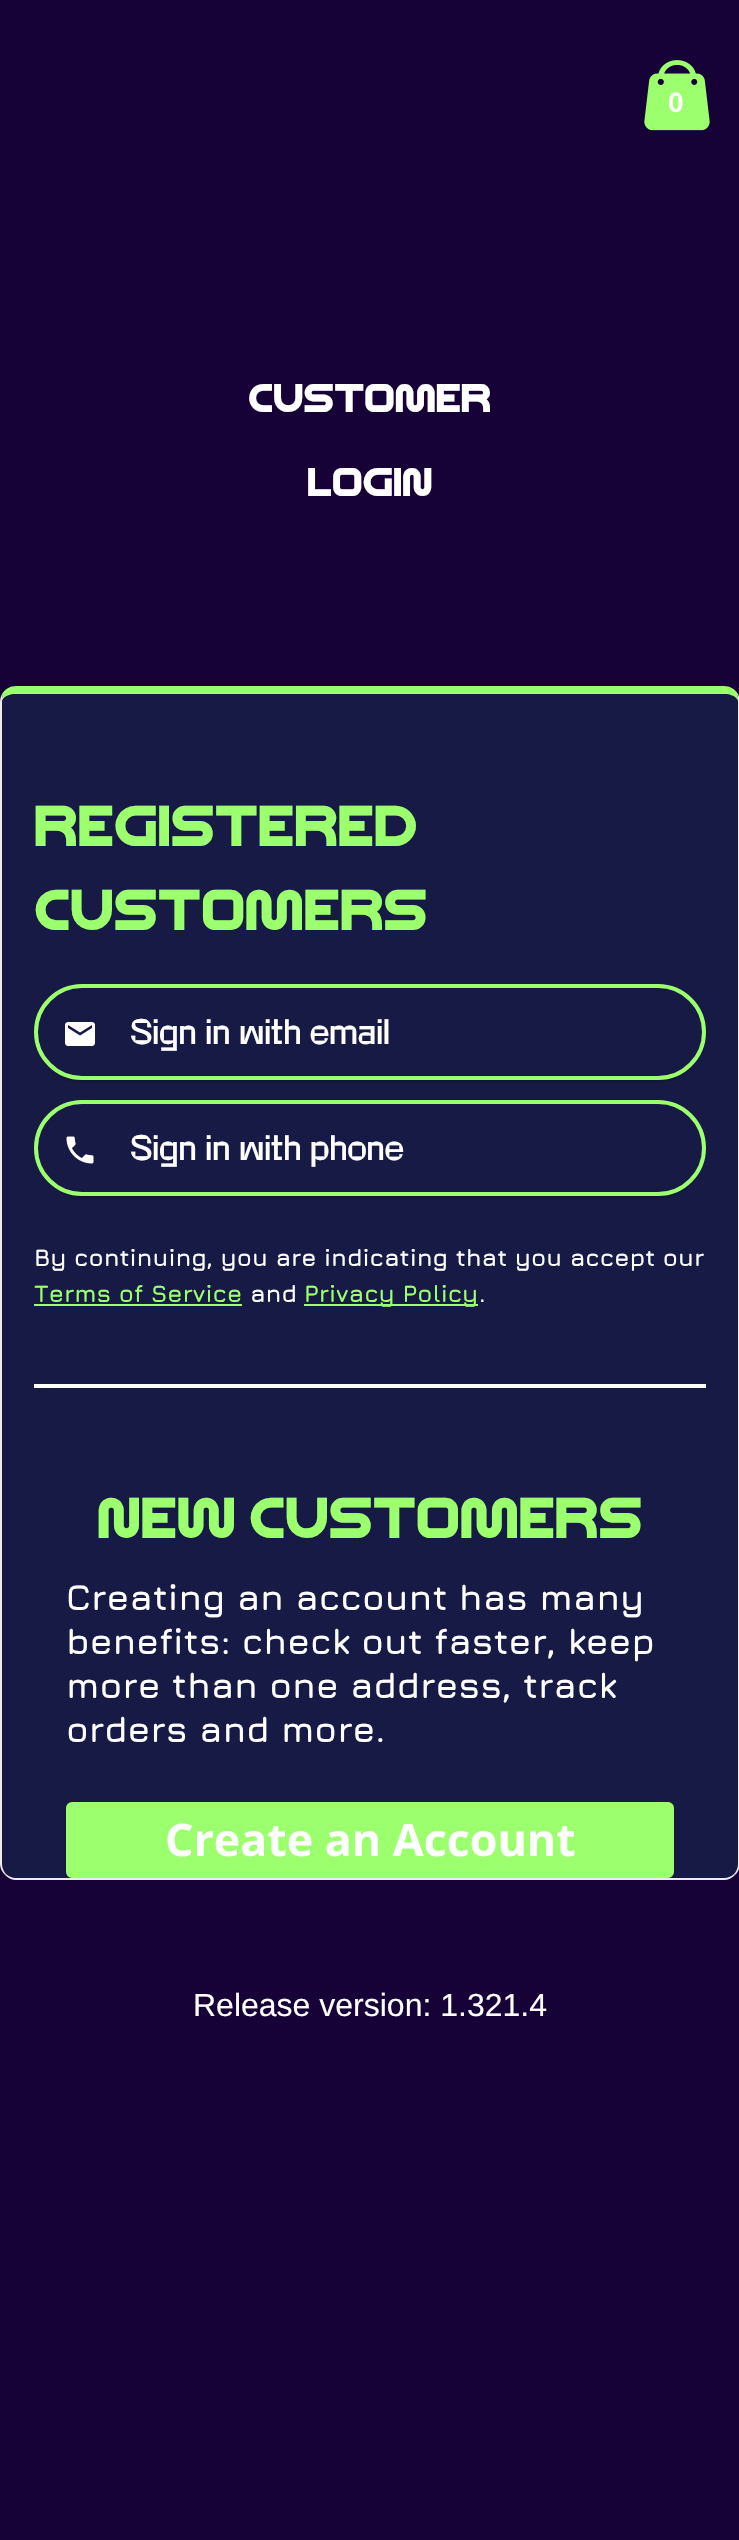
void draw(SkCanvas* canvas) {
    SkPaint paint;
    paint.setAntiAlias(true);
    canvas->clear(0xFF160236);
    canvas->drawImageRect(SkImages::DeferredFromEncodedData(SkData::MakeFromFileName("img1.png")), SkRect::MakeXYWH(644, 60, 66, 71), SkSamplingOptions());
    SkFont font1(fontMgr->matchFamilyStyle("Liberation Sans", SkFontStyle::Bold()), 28);
    font1.setSubpixel(true);
    paint.setColor(0xFFFFFFFF);
    canvas->drawString("0", 668, 112, font1, paint);
    SkFont font2(fontMgr->matchFamilyStyle("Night", SkFontStyle::Bold()), 40);
    font2.setSubpixel(true);
    canvas->drawString("Customer", 248, 412, font2, paint);
    canvas->drawString("Login", 307, 496, font2, paint);
    paint.setColor(0xFF161A44);
    canvas->drawPath(SkPathBuilder().moveTo(16, 694).lineTo(724, 694).cubicTo(732, 694, 738, 698, 738, 702).lineTo(738, 1864).cubicTo(738, 1872, 732, 1878, 724, 1878).lineTo(16, 1878).cubicTo(8, 1878, 2, 1872, 2, 1864).lineTo(2, 702).cubicTo(2, 698, 8, 694, 16, 694).close().detach(), paint);
    paint.setColor(0xFF9BFF6E);
    canvas->drawPath(SkPathBuilder().moveTo(16, 686).cubicTo(10, 686, 5, 689, 2, 694).lineTo(3, 699).cubicTo(5, 696, 10, 694, 16, 694).lineTo(724, 694).cubicTo(730, 694, 735, 696, 737, 699).lineTo(738, 694).cubicTo(735, 689, 730, 686, 724, 686).close().detach(), paint);
    paint.setColor(0xFFECECEC);
    canvas->drawPath(SkPathBuilder().moveTo(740, 1864).lineTo(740, 702).cubicTo(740, 699, 739, 696, 738, 694).lineTo(737, 699).cubicTo(738, 700, 738, 701, 738, 702).lineTo(738, 1864).cubicTo(738, 1868, 736, 1872, 734, 1874).lineTo(735, 1875).cubicTo(738, 1872, 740, 1868, 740, 1864).close().detach(), paint);
    canvas->drawPath(SkPathBuilder().moveTo(16, 1880).lineTo(724, 1880).cubicTo(728, 1880, 732, 1878, 735, 1875).lineTo(734, 1874).cubicTo(732, 1876, 728, 1878, 724, 1878).lineTo(16, 1878).cubicTo(12, 1878, 8, 1876, 6, 1874).lineTo(5, 1875).cubicTo(8, 1878, 12, 1880, 16, 1880).close().detach(), paint);
    canvas->drawPath(SkPathBuilder().moveTo(0, 702).lineTo(0, 1864).cubicTo(0, 1868, 2, 1872, 5, 1875).lineTo(6, 1874).cubicTo(4, 1872, 2, 1868, 2, 1864).lineTo(2, 702).cubicTo(2, 701, 2, 700, 3, 699).lineTo(2, 694).cubicTo(1, 696, 0, 699, 0, 702).close().detach(), paint);
    SkFont font3(fontMgr->matchFamilyStyle("Night", SkFontStyle::Bold()), 57.5f);
    font3.setSubpixel(true);
    paint.setColor(0xFF9BFF6E);
    canvas->drawString("Registered", 34, 846, font3, paint);
    canvas->drawString("Customers", 34, 930, font3, paint);
    canvas->save();
    canvas->clipPath(SkPathBuilder(SkPathFillType::kEvenOdd).moveTo(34, 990).lineTo(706, 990).lineTo(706, 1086).lineTo(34, 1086).close().moveTo(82, 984).lineTo(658, 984).cubicTo(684.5f, 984, 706, 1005.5f, 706, 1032).cubicTo(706, 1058.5f, 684.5f, 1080, 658, 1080).lineTo(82, 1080).cubicTo(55.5f, 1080, 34, 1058.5f, 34, 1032).cubicTo(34, 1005.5f, 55.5f, 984, 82, 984).close().detach(), true);
    paint.setColor(0x33000000);
    paint.setMaskFilter(SkMaskFilter::MakeBlur(kNormal_SkBlurStyle, 1));
    canvas->drawRoundRect(SkRect::MakeXYWH(38, 994, 664, 88), 44, 44, paint);
    paint.setMaskFilter(nullptr);
    canvas->restore();
    paint.setStyle(SkPaint::kStroke_Style);
    paint.setStrokeWidth(4);
    paint.setColor(0xFF9BFF6E);
    canvas->drawRoundRect(SkRect::MakeXYWH(36, 986, 668, 92), 46, 46, paint);
    canvas->drawImageRect(SkImages::DeferredFromEncodedData(SkData::MakeFromFileName("img2.png")), SkRect::MakeXYWH(65, 1022, 30, 24), SkSamplingOptions());
    SkFont font4(fontMgr->matchFamilyStyle("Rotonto", SkFontStyle(500, SkFontStyle::kNormal_Width, SkFontStyle::kUpright_Slant)), 32);
    font4.setSubpixel(true);
    paint.setStyle(SkPaint::kFill_Style);
    paint.setColor(0xFFFFFFFF);
    canvas->drawString("Sign in with email", 130, 1044, font4, paint);
    canvas->save();
    canvas->clipPath(SkPathBuilder(SkPathFillType::kEvenOdd).moveTo(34, 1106).lineTo(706, 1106).lineTo(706, 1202).lineTo(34, 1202).close().moveTo(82, 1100).lineTo(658, 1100).cubicTo(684.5f, 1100, 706, 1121.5f, 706, 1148).cubicTo(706, 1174.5f, 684.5f, 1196, 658, 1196).lineTo(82, 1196).cubicTo(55.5f, 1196, 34, 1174.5f, 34, 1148).cubicTo(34, 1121.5f, 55.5f, 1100, 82, 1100).close().detach(), true);
    paint.setColor(0x33000000);
    paint.setMaskFilter(SkMaskFilter::MakeBlur(kNormal_SkBlurStyle, 1));
    canvas->drawRoundRect(SkRect::MakeXYWH(38, 1110, 664, 88), 44, 44, paint);
    paint.setMaskFilter(nullptr);
    canvas->restore();
    paint.setStyle(SkPaint::kStroke_Style);
    paint.setColor(0xFF9BFF6E);
    canvas->drawRoundRect(SkRect::MakeXYWH(36, 1102, 668, 92), 46, 46, paint);
    canvas->drawImageRect(SkImages::DeferredFromEncodedData(SkData::MakeFromFileName("img3.png")), SkRect::MakeXYWH(66, 1136, 28, 28), SkSamplingOptions());
    paint.setStyle(SkPaint::kFill_Style);
    paint.setColor(0xFFFFFFFF);
    canvas->drawString("Sign in with phone", 130, 1160, font4, paint);
    SkFont font5(fontMgr->matchFamilyStyle("Jura", SkFontStyle::Bold()), 24);
    font5.setSubpixel(true);
    canvas->drawString("By continuing, you are indicating that you accept our", 34, 1266, font5, paint);
    paint.setColor(0xFF9BFF6E);
    canvas->drawString("Terms of Service", 34, 1302, font5, paint);
    canvas->drawRect(SkRect::MakeXYWH(34, 1304, 208, 2), paint);
    paint.setColor(0xFFFFFFFF);
    canvas->drawString("and", 250, 1302, font5, paint);
    paint.setColor(0xFF9BFF6E);
    canvas->drawRect(SkRect::MakeXYWH(304, 1304, 174, 2), paint);
    canvas->drawString("Privacy Policy", 304, 1302, font5, paint);
    paint.setColor(0xFFFFFFFF);
    canvas->drawString(".", 479, 1302, font5, paint);
    canvas->drawRect(SkRect::MakeXYWH(34, 1384, 672, 4), paint);
    paint.setColor(0xFF9BFF6E);
    canvas->drawString("New Customers", 97, 1538, font3, paint);
    SkFont font6(fontMgr->matchFamilyStyle("Jura", SkFontStyle::Bold()), 36);
    font6.setSubpixel(true);
    paint.setColor(0xFFFFFFFF);
    canvas->drawString("Creating an account has many", 66, 1610, font6, paint);
    canvas->drawString("benefits: check out faster, keep", 66, 1654, font6, paint);
    canvas->drawString("more than one address, track", 66, 1698, font6, paint);
    canvas->drawString("orders and more.", 66, 1742, font6, paint);
    paint.setColor(0xFF9BFF6E);
    canvas->drawRoundRect(SkRect::MakeXYWH(67, 1803, 606, 74), 5, 5, paint);
    paint.setStyle(SkPaint::kStroke_Style);
    paint.setStrokeWidth(2);
    canvas->drawRoundRect(SkRect::MakeXYWH(67, 1803, 606, 74), 5, 5, paint);
    SkFont font7(fontMgr->matchFamilyStyle("Open Sans", SkFontStyle::Bold()), 44.75f);
    font7.setSubpixel(true);
    paint.setStyle(SkPaint::kFill_Style);
    paint.setColor(0xFFFFFFFF);
    canvas->drawString("Create an Account", 165, 1856, font7, paint);
    SkFont font8(fontMgr->matchFamilyStyle("Liberation Sans", SkFontStyle::Normal()), 32);
    font8.setSubpixel(true);
    canvas->drawString("Release version: 1.321.4", 193, 2016, font8, paint);
}
